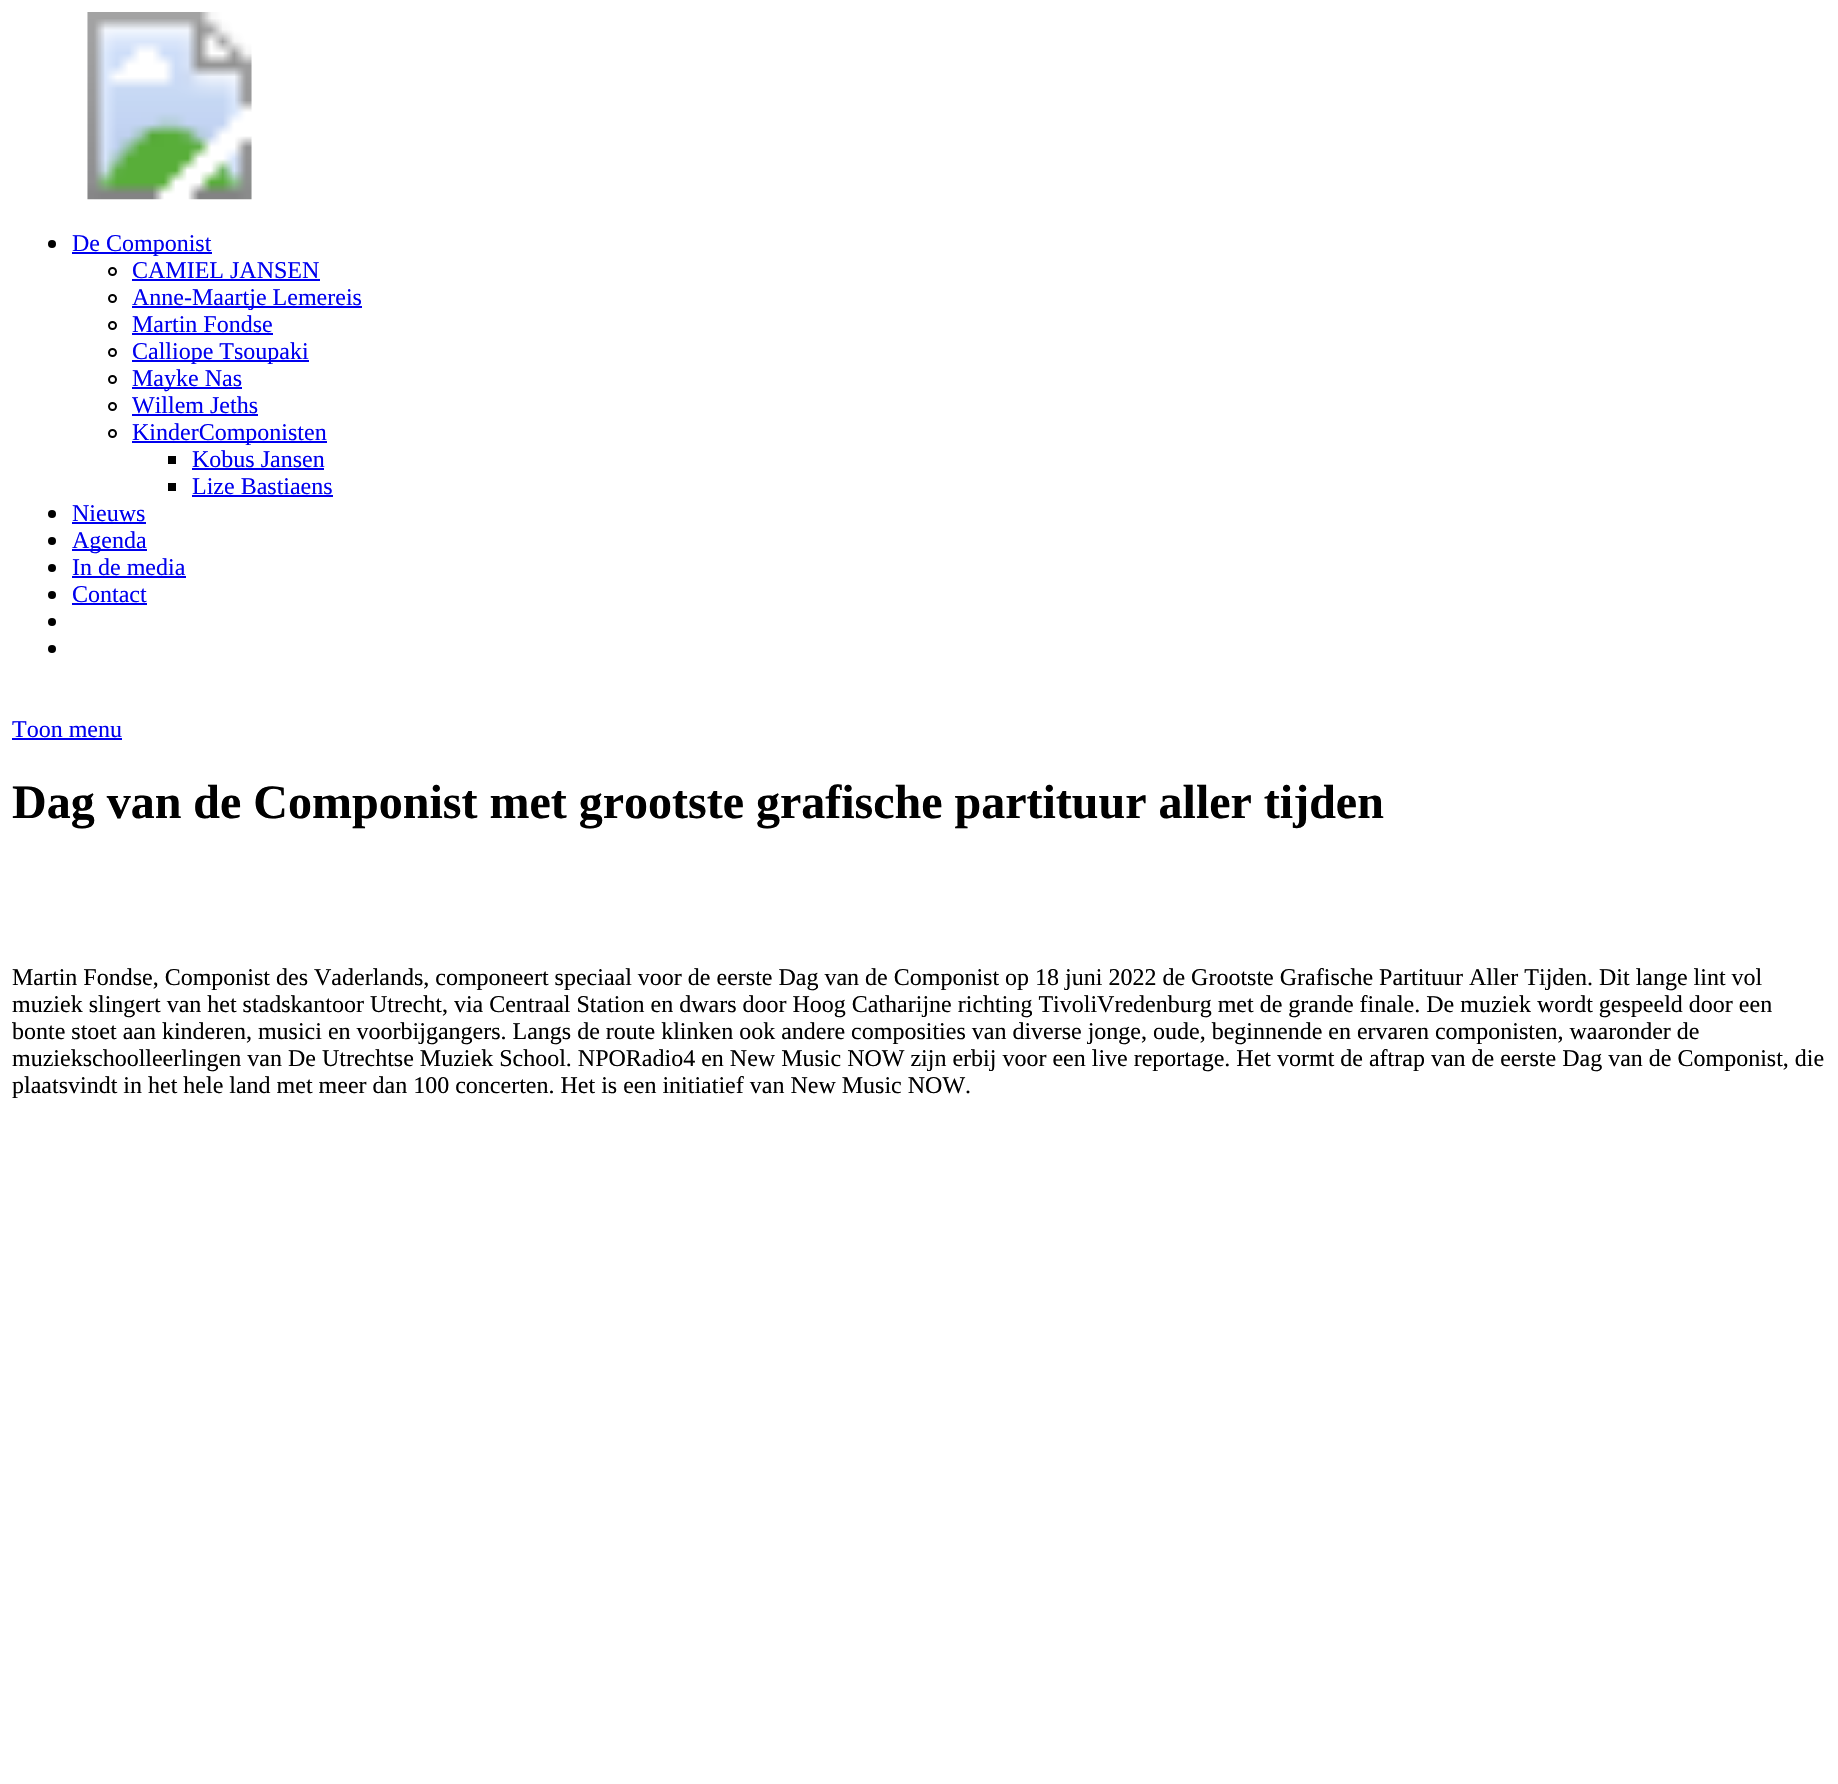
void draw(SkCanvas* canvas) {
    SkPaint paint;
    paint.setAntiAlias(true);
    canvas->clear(0xFFFFFFFF);
    canvas->drawImageRect(SkImages::DeferredFromEncodedData(SkData::MakeFromFileName("img1.png")), SkRect::MakeXYWH(87, 12, 165, 188), SkSamplingOptions());
    paint.setColor(0xFF000000);
    canvas->drawCircle(52, 244, 4, paint);
    paint.setColor(0xFF0000EE);
    canvas->drawRect(SkRect::MakeXYWH(72, 252, 140, 2), paint);
    SkFont font1(fontMgr->matchFamilyStyle("Liberation Serif", SkFontStyle::Normal()), 24);
    font1.setSubpixel(true);
    canvas->drawString("De Componist", 72, 251, font1, paint);
    paint.setStyle(SkPaint::kStroke_Style);
    paint.setStrokeWidth(2);
    paint.setColor(0xFF000000);
    canvas->drawCircle(112.5f, 271.5f, 3.5f, paint);
    paint.setStyle(SkPaint::kFill_Style);
    paint.setColor(0xFF0000EE);
    canvas->drawString("CAMIEL JANSEN", 132, 278, font1, paint);
    canvas->drawRect(SkRect::MakeXYWH(132, 279, 188, 2), paint);
    paint.setStyle(SkPaint::kStroke_Style);
    paint.setColor(0xFF000000);
    canvas->drawCircle(112.5f, 298.5f, 3.5f, paint);
    paint.setStyle(SkPaint::kFill_Style);
    paint.setColor(0xFF0000EE);
    canvas->drawRect(SkRect::MakeXYWH(132, 306, 230, 2), paint);
    canvas->drawString("Anne-Maartje Lemereis", 132, 305, font1, paint);
    paint.setStyle(SkPaint::kStroke_Style);
    paint.setColor(0xFF000000);
    canvas->drawCircle(112.5f, 325.5f, 3.5f, paint);
    paint.setStyle(SkPaint::kFill_Style);
    paint.setColor(0xFF0000EE);
    canvas->drawString("Martin Fondse", 132, 332, font1, paint);
    canvas->drawRect(SkRect::MakeXYWH(132, 333, 141, 2), paint);
    paint.setStyle(SkPaint::kStroke_Style);
    paint.setColor(0xFF000000);
    canvas->drawCircle(112.5f, 352.5f, 3.5f, paint);
    paint.setStyle(SkPaint::kFill_Style);
    paint.setColor(0xFF0000EE);
    canvas->drawRect(SkRect::MakeXYWH(132, 360, 177, 2), paint);
    canvas->drawString("Calliope Tsoupaki", 132, 359, font1, paint);
    paint.setStyle(SkPaint::kStroke_Style);
    paint.setColor(0xFF000000);
    canvas->drawCircle(112.5f, 379.5f, 3.5f, paint);
    paint.setStyle(SkPaint::kFill_Style);
    paint.setColor(0xFF0000EE);
    canvas->drawRect(SkRect::MakeXYWH(132, 387, 110, 2), paint);
    canvas->drawString("Mayke Nas", 132, 386, font1, paint);
    paint.setStyle(SkPaint::kStroke_Style);
    paint.setColor(0xFF000000);
    canvas->drawCircle(112.5f, 406.5f, 3.5f, paint);
    paint.setStyle(SkPaint::kFill_Style);
    paint.setColor(0xFF0000EE);
    canvas->drawString("Willem Jeths", 132, 413, font1, paint);
    canvas->drawRect(SkRect::MakeXYWH(132, 414, 126, 2), paint);
    paint.setStyle(SkPaint::kStroke_Style);
    paint.setColor(0xFF000000);
    canvas->drawCircle(112.5f, 433.5f, 3.5f, paint);
    paint.setStyle(SkPaint::kFill_Style);
    paint.setColor(0xFF0000EE);
    canvas->drawRect(SkRect::MakeXYWH(132, 441, 195, 2), paint);
    canvas->drawString("KinderComponisten", 132, 440, font1, paint);
    paint.setColor(0xFF000000);
    canvas->drawRect(SkRect::MakeXYWH(168, 456, 8, 8), paint);
    paint.setColor(0xFF0000EE);
    canvas->drawString("Kobus Jansen", 192, 467, font1, paint);
    canvas->drawRect(SkRect::MakeXYWH(192, 468, 132, 2), paint);
    paint.setColor(0xFF000000);
    canvas->drawRect(SkRect::MakeXYWH(168, 483, 8, 8), paint);
    paint.setColor(0xFF0000EE);
    canvas->drawString("Lize Bastiaens", 192, 494, font1, paint);
    canvas->drawRect(SkRect::MakeXYWH(192, 495, 141, 2), paint);
    paint.setColor(0xFF000000);
    canvas->drawCircle(52, 514, 4, paint);
    paint.setColor(0xFF0000EE);
    canvas->drawString("Nieuws", 72, 521, font1, paint);
    canvas->drawRect(SkRect::MakeXYWH(72, 522, 74, 2), paint);
    paint.setColor(0xFF000000);
    canvas->drawCircle(52, 541, 4, paint);
    paint.setColor(0xFF0000EE);
    canvas->drawRect(SkRect::MakeXYWH(72, 549, 75, 2), paint);
    canvas->drawString("Agenda", 72, 548, font1, paint);
    paint.setColor(0xFF000000);
    canvas->drawCircle(52, 568, 4, paint);
    paint.setColor(0xFF0000EE);
    canvas->drawString("In de media", 72, 575, font1, paint);
    canvas->drawRect(SkRect::MakeXYWH(72, 576, 114, 2), paint);
    paint.setColor(0xFF000000);
    canvas->drawCircle(52, 595, 4, paint);
    paint.setColor(0xFF0000EE);
    canvas->drawString("Contact", 72, 602, font1, paint);
    canvas->drawRect(SkRect::MakeXYWH(72, 603, 75, 2), paint);
    paint.setColor(0xFF000000);
    canvas->drawCircle(52, 622, 4, paint);
    canvas->drawCircle(52, 649, 4, paint);
    paint.setColor(0xFF0000EE);
    canvas->drawString("Toon menu", 12, 737, font1, paint);
    canvas->drawRect(SkRect::MakeXYWH(12, 738, 110, 2), paint);
    SkFont font2(fontMgr->matchFamilyStyle("Liberation Serif", SkFontStyle::Bold()), 48);
    font2.setSubpixel(true);
    paint.setColor(0xFF000000);
    canvas->drawString("Dag van de Componist met grootste grafische partituur aller tijden", 12, 818, font2, paint);
    canvas->drawString("Martin Fondse, Componist des Vaderlands, componeert speciaal voor de eerste Dag van de Componist op 18 juni 2022 de Grootste Grafische Partituur Aller Tijden. Dit lange lint vol", 12, 985, font1, paint);
    canvas->drawString("muziek slingert van het stadskantoor Utrecht, via Centraal Station en dwars door Hoog Catharijne richting TivoliVredenburg met de grande finale. De muziek wordt gespeeld door een", 12, 1012, font1, paint);
    canvas->drawString("bonte stoet aan kinderen, musici en voorbijgangers. Langs de route klinken ook andere composities van diverse jonge, oude, beginnende en ervaren componisten, waaronder de", 12, 1039, font1, paint);
    canvas->drawString("muziekschoolleerlingen van De Utrechtse Muziek School. NPORadio4 en New Music NOW zijn erbij voor een live reportage. Het vormt de aftrap van de eerste Dag van de Componist, die", 12, 1066, font1, paint);
    canvas->drawString("plaatsvindt in het hele land met meer dan 100 concerten. Het is een initiatief van New Music NOW.", 12, 1093, font1, paint);
}
